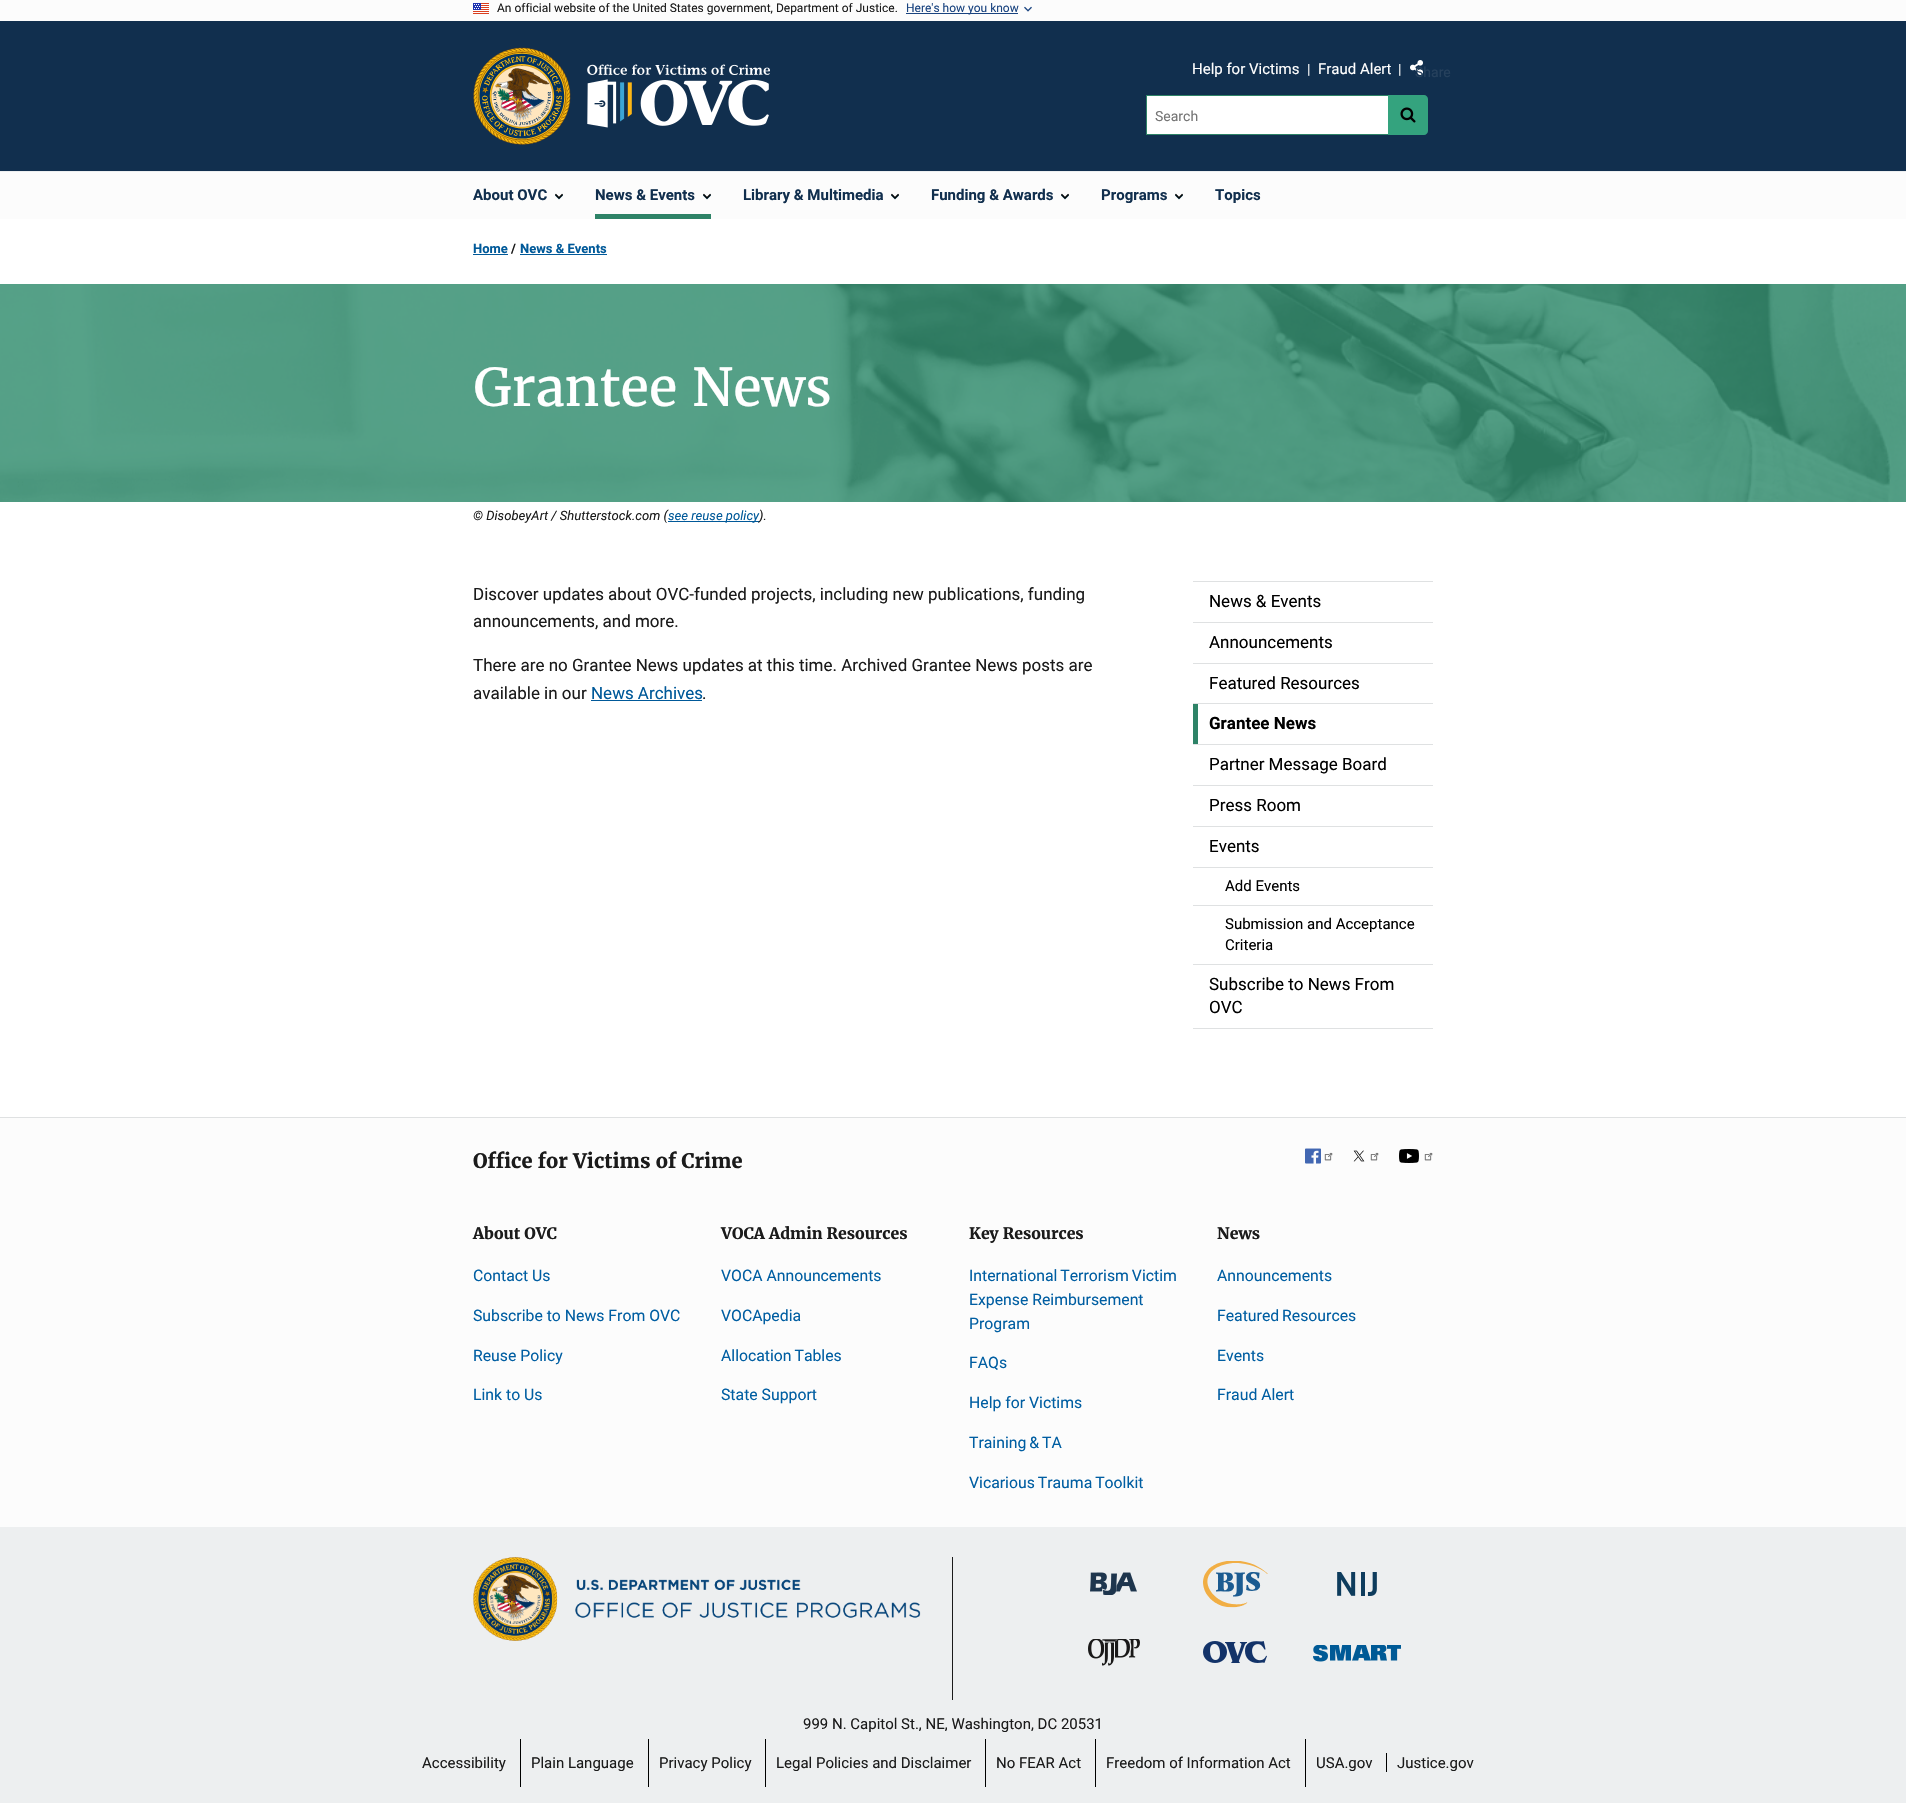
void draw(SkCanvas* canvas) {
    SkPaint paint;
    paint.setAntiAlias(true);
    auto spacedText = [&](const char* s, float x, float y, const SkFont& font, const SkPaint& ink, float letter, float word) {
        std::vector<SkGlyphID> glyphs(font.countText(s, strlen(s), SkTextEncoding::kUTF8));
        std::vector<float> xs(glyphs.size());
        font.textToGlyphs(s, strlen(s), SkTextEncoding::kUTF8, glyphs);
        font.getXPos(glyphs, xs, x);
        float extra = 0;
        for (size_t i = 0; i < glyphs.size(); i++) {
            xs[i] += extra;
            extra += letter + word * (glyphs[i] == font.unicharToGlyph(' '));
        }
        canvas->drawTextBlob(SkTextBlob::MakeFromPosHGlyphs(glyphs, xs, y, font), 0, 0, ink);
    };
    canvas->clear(0xFFFFFFFF);
    paint.setColor(0xFFFCFCFC);
    canvas->drawRect(SkRect::MakeXYWH(0, 0, 1906, 21), paint);
    canvas->drawImageRect(SkImages::DeferredFromEncodedData(SkData::MakeFromFileName("img1.png")), SkRect::MakeXYWH(473, 3, 16, 11), SkSamplingOptions());
    SkFont font1(fontMgr->matchFamilyStyle("Roboto", SkFontStyle::Normal()), 12);
    font1.setSubpixel(true);
    paint.setColor(0xFF1B1B1B);
    canvas->drawString("An official website of the United States government, Department of Justice.", 497, 12, font1, paint);
    paint.setColor(0xFF1A4480);
    canvas->drawRect(SkRect::MakeXYWH(906, 13, 112, 1), paint);
    canvas->drawString("Here's how you know", 906, 12, font1, paint);
    canvas->drawImageRect(SkImages::DeferredFromEncodedData(SkData::MakeFromFileName("img2.png")), SkRect::MakeXYWH(1024, 6, 8, 6), SkSamplingOptions());
    paint.setColor(0xFF112F4E);
    canvas->drawRect(SkRect::MakeXYWH(0, 21, 1906, 150), paint);
    canvas->drawImageRect(SkImages::DeferredFromEncodedData(SkData::MakeFromFileName("img3.png")), SkRect::MakeXYWH(473, 47, 98, 98), SkSamplingOptions());
    canvas->drawImageRect(SkImages::DeferredFromEncodedData(SkData::MakeFromFileName("img4.png")), SkRect::MakeXYWH(587, 64, 183, 64), SkSamplingOptions());
    paint.setColor(0xFFFCFCFC);
    canvas->drawRect(SkRect::MakeXYWH(0, 172, 1906, 47), paint);
    paint.setColor(0xFFEDEFF0);
    canvas->drawRect(SkRect::MakeXYWH(0, 171, 1906, 1), paint);
    SkFont font2(fontMgr->matchFamilyStyle("Roboto", SkFontStyle::Normal()), 15);
    font2.setSubpixel(true);
    paint.setColor(0xFFFFFFFF);
    canvas->drawString("Help for Victims", 1192, 74, font2, paint);
    SkFont font3(fontMgr->matchFamilyStyle("Roboto", SkFontStyle::Normal()), 14);
    font3.setSubpixel(true);
    paint.setColor(0xFFEDEFF0);
    canvas->drawString("|", 1307, 74, font3, paint);
    paint.setColor(0xFFFFFFFF);
    canvas->drawString("Fraud Alert", 1318, 74, font2, paint);
    paint.setColor(0xFFEDEFF0);
    canvas->drawString("|", 1398, 74, font3, paint);
    canvas->drawImageRect(SkImages::DeferredFromEncodedData(SkData::MakeFromFileName("img5.png")), SkRect::MakeXYWH(1410, 60, 13, 15), SkSamplingOptions());
    paint.setColor(0xFF26415D);
    canvas->drawString("Share", 1415, 77, font3, paint);
    paint.setColor(0xFFFFFFFF);
    canvas->drawRect(SkRect::MakeXYWH(1147, 96, 241, 38), paint);
    paint.setColor(0xFF2E8367);
    canvas->drawRect(SkRect::MakeXYWH(1146, 95, 242, 1), paint);
    canvas->drawRect(SkRect::MakeXYWH(1146, 134, 242, 1), paint);
    canvas->drawRect(SkRect::MakeXYWH(1146, 95, 1, 40), paint);
    paint.setColor(0xFF757575);
    canvas->drawString("Search", 1155, 121, font3, paint);
    paint.setColor(0xFF34A37E);
    canvas->drawPath(SkPathBuilder().moveTo(1388, 95).lineTo(1424, 95).cubicTo(1426, 95, 1428, 97, 1428, 99).lineTo(1428, 131).cubicTo(1428, 133, 1426, 135, 1424, 135).lineTo(1388, 135).close().detach(), paint);
    canvas->drawImageRect(SkImages::DeferredFromEncodedData(SkData::MakeFromFileName("img6.png")), SkRect::MakeXYWH(1400, 107, 16, 16), SkSamplingOptions());
    canvas->drawImageRect(SkImages::DeferredFromEncodedData(SkData::MakeFromFileName("img7.png")), SkRect::MakeXYWH(555, 194, 8, 6), SkSamplingOptions());
    SkFont font4(fontMgr->matchFamilyStyle("Roboto", SkFontStyle::Bold()), 15);
    font4.setSubpixel(true);
    paint.setColor(0xFF112F4E);
    canvas->drawString("About OVC", 473, 200, font4, paint);
    canvas->drawImageRect(SkImages::DeferredFromEncodedData(SkData::MakeFromFileName("img8.png")), SkRect::MakeXYWH(555, 193, 8, 6), SkSamplingOptions());
    canvas->drawImageRect(SkImages::DeferredFromEncodedData(SkData::MakeFromFileName("img7.png")), SkRect::MakeXYWH(703, 194, 8, 6), SkSamplingOptions());
    canvas->drawString("News & Events", 595, 200, font4, paint);
    canvas->drawImageRect(SkImages::DeferredFromEncodedData(SkData::MakeFromFileName("img8.png")), SkRect::MakeXYWH(703, 193, 8, 6), SkSamplingOptions());
    paint.setColor(0xFF2E8367);
    canvas->drawRect(SkRect::MakeXYWH(595, 214, 116, 5), paint);
    canvas->drawImageRect(SkImages::DeferredFromEncodedData(SkData::MakeFromFileName("img7.png")), SkRect::MakeXYWH(891, 194, 8, 6), SkSamplingOptions());
    paint.setColor(0xFF112F4E);
    canvas->drawString("Library & Multimedia", 743, 200, font4, paint);
    canvas->drawImageRect(SkImages::DeferredFromEncodedData(SkData::MakeFromFileName("img8.png")), SkRect::MakeXYWH(891, 193, 8, 6), SkSamplingOptions());
    canvas->drawImageRect(SkImages::DeferredFromEncodedData(SkData::MakeFromFileName("img7.png")), SkRect::MakeXYWH(1061, 194, 8, 6), SkSamplingOptions());
    canvas->drawString("Funding & Awards", 931, 200, font4, paint);
    canvas->drawImageRect(SkImages::DeferredFromEncodedData(SkData::MakeFromFileName("img8.png")), SkRect::MakeXYWH(1061, 193, 8, 6), SkSamplingOptions());
    canvas->drawImageRect(SkImages::DeferredFromEncodedData(SkData::MakeFromFileName("img7.png")), SkRect::MakeXYWH(1175, 194, 8, 6), SkSamplingOptions());
    canvas->drawString("Programs", 1101, 200, font4, paint);
    canvas->drawImageRect(SkImages::DeferredFromEncodedData(SkData::MakeFromFileName("img8.png")), SkRect::MakeXYWH(1175, 193, 8, 6), SkSamplingOptions());
    canvas->drawString("Topics", 1215, 200, font4, paint);
    SkFont font5(fontMgr->matchFamilyStyle("Roboto", SkFontStyle::Bold()), 13);
    font5.setSubpixel(true);
    paint.setColor(0xFF005999);
    canvas->drawString("Home", 473, 253, font5, paint);
    canvas->drawRect(SkRect::MakeXYWH(473, 254, 35, 1), paint);
    paint.setColor(0xFF1B1B1B);
    canvas->drawString("/", 511, 253, font5, paint);
    paint.setColor(0xFF005999);
    canvas->drawString("News & Events", 520, 253, font5, paint);
    canvas->drawRect(SkRect::MakeXYWH(520, 254, 87, 1), paint);
    canvas->drawImageRect(SkImages::DeferredFromEncodedData(SkData::MakeFromFileName("img9.png")), SkRect::MakeXYWH(0, 284, 1906, 218), SkSamplingOptions());
    SkFont font6(fontMgr->matchFamilyStyle("Merriweather", SkFontStyle::Normal()), 52);
    font6.setSubpixel(true);
    paint.setColor(0xFFFFFFFF);
    canvas->drawString("Grantee News", 473, 406, font6, paint);
    SkFont font7(fontMgr->matchFamilyStyle("Roboto", SkFontStyle::Italic()), 13);
    font7.setSubpixel(true);
    paint.setColor(0xFF1B1B1B);
    canvas->drawString("© DisobeyArt / Shutterstock.com (", 473, 520, font7, paint);
    paint.setColor(0xFF005999);
    canvas->drawRect(SkRect::MakeXYWH(668, 521, 91, 1), paint);
    canvas->drawString("see reuse policy", 668, 520, font7, paint);
    paint.setColor(0xFF1B1B1B);
    canvas->drawString(").", 759, 520, font7, paint);
    SkFont font8(fontMgr->matchFamilyStyle("Roboto", SkFontStyle::Normal()), 17);
    font8.setSubpixel(true);
    canvas->drawString("Discover updates about OVC-funded projects, including new publications, funding", 473, 600, font8, paint);
    canvas->drawString("announcements, and more.", 473, 627, font8, paint);
    canvas->drawString("There are no Grantee News updates at this time. Archived Grantee News posts are", 473, 671, font8, paint);
    canvas->drawString("available in our", 473, 699, font8, paint);
    paint.setColor(0xFF005999);
    canvas->drawString("News Archives", 591, 699, font8, paint);
    canvas->drawRect(SkRect::MakeXYWH(591, 700, 111, 1), paint);
    paint.setColor(0xFF1B1B1B);
    canvas->drawString(".", 702, 699, font8, paint);
    paint.setColor(0xFFDFE1E2);
    canvas->drawRect(SkRect::MakeXYWH(1193, 1028, 240, 1), paint);
    canvas->drawRect(SkRect::MakeXYWH(1193, 581, 240, 1), paint);
    paint.setColor(0xFF000000);
    canvas->drawString("News & Events", 1209, 607, font8, paint);
    paint.setColor(0xFFDFE1E2);
    canvas->drawRect(SkRect::MakeXYWH(1193, 622, 240, 1), paint);
    paint.setColor(0xFF000000);
    canvas->drawString("Announcements", 1209, 648, font8, paint);
    paint.setColor(0xFFDFE1E2);
    canvas->drawRect(SkRect::MakeXYWH(1193, 663, 240, 1), paint);
    paint.setColor(0xFF000000);
    canvas->drawString("Featured Resources", 1209, 689, font8, paint);
    paint.setColor(0xFFDFE1E2);
    canvas->drawRect(SkRect::MakeXYWH(1193, 703, 240, 1), paint);
    paint.setColor(0xFF2E8367);
    canvas->drawRect(SkRect::MakeXYWH(1193, 704, 5, 40), paint);
    SkFont font9(fontMgr->matchFamilyStyle("Roboto", SkFontStyle::Bold()), 17);
    font9.setSubpixel(true);
    paint.setColor(0xFF000000);
    canvas->drawString("Grantee News", 1209, 729, font9, paint);
    paint.setColor(0xFFDFE1E2);
    canvas->drawRect(SkRect::MakeXYWH(1193, 744, 240, 1), paint);
    paint.setColor(0xFF000000);
    canvas->drawString("Partner Message Board", 1209, 770, font8, paint);
    paint.setColor(0xFFDFE1E2);
    canvas->drawRect(SkRect::MakeXYWH(1193, 785, 240, 1), paint);
    paint.setColor(0xFF000000);
    canvas->drawString("Press Room", 1209, 811, font8, paint);
    paint.setColor(0xFFDFE1E2);
    canvas->drawRect(SkRect::MakeXYWH(1193, 826, 240, 1), paint);
    canvas->drawRect(SkRect::MakeXYWH(1193, 867, 240, 1), paint);
    paint.setColor(0xFF000000);
    canvas->drawString("Events", 1209, 852, font8, paint);
    canvas->drawString("Add Events", 1225, 891, font2, paint);
    paint.setColor(0xFFDFE1E2);
    canvas->drawRect(SkRect::MakeXYWH(1193, 905, 240, 1), paint);
    paint.setColor(0xFF000000);
    canvas->drawString("Submission and Acceptance", 1225, 929, font2, paint);
    canvas->drawString("Criteria", 1225, 950, font2, paint);
    paint.setColor(0xFFDFE1E2);
    canvas->drawRect(SkRect::MakeXYWH(1193, 964, 240, 1), paint);
    paint.setColor(0xFF000000);
    canvas->drawString("Subscribe to News From", 1209, 990, font8, paint);
    canvas->drawString("OVC", 1209, 1013, font8, paint);
    paint.setColor(0xFFFCFCFC);
    canvas->drawRect(SkRect::MakeXYWH(0, 1118, 1906, 409), paint);
    paint.setColor(0xFFDFE1E2);
    canvas->drawRect(SkRect::MakeXYWH(0, 1117, 1906, 1), paint);
    SkFont font10(fontMgr->matchFamilyStyle("Merriweather", SkFontStyle::Bold()), 20);
    font10.setSubpixel(true);
    paint.setColor(0xFF1B1B1B);
    canvas->drawString("Office for Victims of Crime", 473, 1168, font10, paint);
    canvas->drawImageRect(SkImages::DeferredFromEncodedData(SkData::MakeFromFileName("img10.png")), SkRect::MakeXYWH(1305, 1148, 16, 16), SkSamplingOptions());
    canvas->drawImageRect(SkImages::DeferredFromEncodedData(SkData::MakeFromFileName("img11.png")), SkRect::MakeXYWH(1324, 1152, 9, 9), SkSamplingOptions());
    canvas->drawImageRect(SkImages::DeferredFromEncodedData(SkData::MakeFromFileName("img12.png")), SkRect::MakeXYWH(1353, 1150, 12, 12), SkSamplingOptions());
    canvas->drawImageRect(SkImages::DeferredFromEncodedData(SkData::MakeFromFileName("img11.png")), SkRect::MakeXYWH(1370, 1152, 9, 9), SkSamplingOptions());
    canvas->drawImageRect(SkImages::DeferredFromEncodedData(SkData::MakeFromFileName("img13.png")), SkRect::MakeXYWH(1399, 1149, 20, 14), SkSamplingOptions());
    canvas->drawImageRect(SkImages::DeferredFromEncodedData(SkData::MakeFromFileName("img11.png")), SkRect::MakeXYWH(1424, 1152, 9, 9), SkSamplingOptions());
    SkFont font11(fontMgr->matchFamilyStyle("Merriweather", SkFontStyle::Bold()), 15.75f);
    font11.setSubpixel(true);
    canvas->drawString("About OVC", 473, 1239, font11, paint);
    SkFont font12(fontMgr->matchFamilyStyle("Roboto", SkFontStyle::Normal()), 15.8f);
    font12.setSubpixel(true);
    paint.setColor(0xFF005EA2);
    canvas->drawString("Contact Us", 473, 1281, font12, paint);
    canvas->drawString("Subscribe to News From OVC", 473, 1321, font12, paint);
    canvas->drawString("Reuse Policy", 473, 1361, font12, paint);
    canvas->drawString("Link to Us", 473, 1400, font12, paint);
    paint.setColor(0xFF1B1B1B);
    canvas->drawString("VOCA Admin Resources", 721, 1239, font11, paint);
    paint.setColor(0xFF005EA2);
    canvas->drawString("VOCA Announcements", 721, 1281, font12, paint);
    canvas->drawString("VOCApedia", 721, 1321, font12, paint);
    spacedText("Allocation Tables", 721, 1361, font12, paint, 0, -1);
    canvas->drawString("State Support", 721, 1400, font12, paint);
    paint.setColor(0xFF1B1B1B);
    canvas->drawString("Key Resources", 969, 1239, font11, paint);
    paint.setColor(0xFF005EA2);
    spacedText("International Terrorism Victim", 969, 1281, font12, paint, 0, -1);
    canvas->drawString("Expense Reimbursement", 969, 1305, font12, paint);
    canvas->drawString("Program", 969, 1329, font12, paint);
    canvas->drawString("FAQs", 969, 1368, font12, paint);
    canvas->drawString("Help for Victims", 969, 1408, font12, paint);
    spacedText("Training & TA", 969, 1448, font12, paint, 0, -1);
    spacedText("Vicarious Trauma Toolkit", 969, 1488, font12, paint, 0, -1);
    paint.setColor(0xFF1B1B1B);
    canvas->drawString("News", 1217, 1239, font11, paint);
    paint.setColor(0xFF005EA2);
    canvas->drawString("Announcements", 1217, 1281, font12, paint);
    spacedText("Featured Resources", 1217, 1321, font12, paint, 0, -1);
    canvas->drawString("Events", 1217, 1361, font12, paint);
    canvas->drawString("Fraud Alert", 1217, 1400, font12, paint);
    paint.setColor(0xFFEDEFF0);
    canvas->drawRect(SkRect::MakeXYWH(0, 1527, 1906, 276), paint);
    paint.setColor(0xFF1B1B1B);
    canvas->drawRect(SkRect::MakeXYWH(952, 1557, 1, 143), paint);
    canvas->drawImageRect(SkImages::DeferredFromEncodedData(SkData::MakeFromFileName("img14.png")), SkRect::MakeXYWH(473, 1557, 448, 84), SkSamplingOptions());
    canvas->drawImageRect(SkImages::DeferredFromEncodedData(SkData::MakeFromFileName("img15.png")), SkRect::MakeXYWH(1090, 1572, 47, 23), SkSamplingOptions());
    canvas->drawImageRect(SkImages::DeferredFromEncodedData(SkData::MakeFromFileName("img16.png")), SkRect::MakeXYWH(1203, 1561, 65, 47), SkSamplingOptions());
    canvas->drawImageRect(SkImages::DeferredFromEncodedData(SkData::MakeFromFileName("img17.png")), SkRect::MakeXYWH(1337, 1572, 40, 24), SkSamplingOptions());
    canvas->drawImageRect(SkImages::DeferredFromEncodedData(SkData::MakeFromFileName("img18.png")), SkRect::MakeXYWH(1088, 1639, 52, 27), SkSamplingOptions());
    canvas->drawImageRect(SkImages::DeferredFromEncodedData(SkData::MakeFromFileName("img19.png")), SkRect::MakeXYWH(1203, 1641, 64, 22), SkSamplingOptions());
    canvas->drawImageRect(SkImages::DeferredFromEncodedData(SkData::MakeFromFileName("img20.png")), SkRect::MakeXYWH(1313, 1645, 88, 17), SkSamplingOptions());
    canvas->drawString("999 N. Capitol St., NE, Washington, DC 20531", 803, 1729, font2, paint);
    canvas->drawString("Accessibility", 422, 1768, font2, paint);
    paint.setColor(0xFF000000);
    canvas->drawRect(SkRect::MakeXYWH(520, 1739, 1, 48), paint);
    paint.setColor(0xFF1B1B1B);
    canvas->drawString("Plain Language", 531, 1768, font2, paint);
    paint.setColor(0xFF000000);
    canvas->drawRect(SkRect::MakeXYWH(648, 1739, 1, 48), paint);
    paint.setColor(0xFF1B1B1B);
    canvas->drawString("Privacy Policy", 659, 1768, font2, paint);
    paint.setColor(0xFF000000);
    canvas->drawRect(SkRect::MakeXYWH(765, 1739, 1, 48), paint);
    paint.setColor(0xFF1B1B1B);
    canvas->drawString("Legal Policies and Disclaimer", 776, 1768, font2, paint);
    paint.setColor(0xFF000000);
    canvas->drawRect(SkRect::MakeXYWH(985, 1739, 1, 48), paint);
    paint.setColor(0xFF1B1B1B);
    canvas->drawString("No FEAR Act", 996, 1768, font2, paint);
    paint.setColor(0xFF000000);
    canvas->drawRect(SkRect::MakeXYWH(1095, 1739, 1, 48), paint);
    paint.setColor(0xFF1B1B1B);
    canvas->drawString("Freedom of Information Act", 1106, 1768, font2, paint);
    paint.setColor(0xFF000000);
    canvas->drawRect(SkRect::MakeXYWH(1305, 1739, 1, 48), paint);
    paint.setColor(0xFF1B1B1B);
    canvas->drawString("USA.gov", 1316, 1768, font2, paint);
    paint.setColor(0xFF000000);
    canvas->drawRect(SkRect::MakeXYWH(1386, 1753, 1, 19), paint);
    paint.setColor(0xFF1B1B1B);
    canvas->drawString("Justice.gov", 1397, 1768, font2, paint);
}
